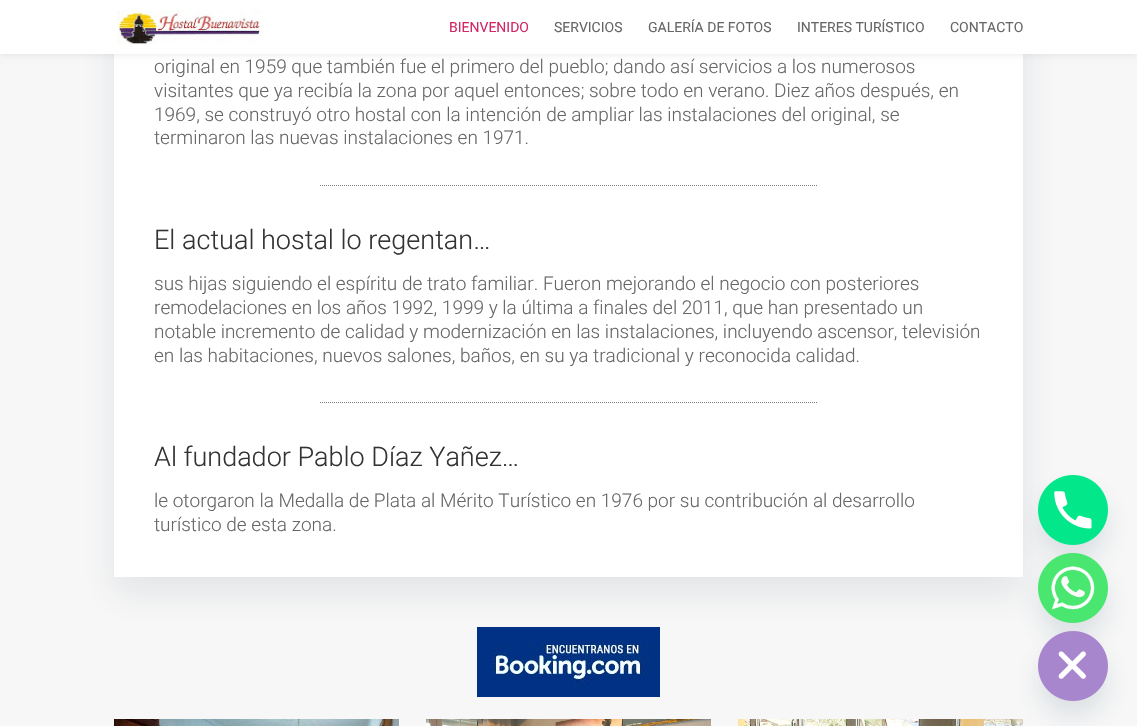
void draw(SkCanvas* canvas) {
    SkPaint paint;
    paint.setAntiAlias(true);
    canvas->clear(0xFFF7F7F7);
    paint.setColor(0x1A263954);
    paint.setMaskFilter(SkMaskFilter::MakeBlur(kNormal_SkBlurStyle, 16));
    canvas->drawRect(SkRect::MakeXYWH(114, -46, 909, 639), paint);
    paint.setMaskFilter(nullptr);
    paint.setColor(0xFFFFFFFF);
    canvas->drawRect(SkRect::MakeXYWH(114, 54, 909, 523), paint);
    paint.setColor(0x1A000000);
    paint.setMaskFilter(SkMaskFilter::MakeBlur(kNormal_SkBlurStyle, 3.5f));
    canvas->drawRect(SkRect::MakeXYWH(0, 0, 1137, 54), paint);
    paint.setMaskFilter(nullptr);
    paint.setColor(0xFFFFFFFF);
    canvas->drawRect(SkRect::MakeXYWH(0, 0, 1137, 54), paint);
    canvas->drawImageRect(SkImages::DeferredFromEncodedData(SkData::MakeFromFileName("img1.png")), SkRect::MakeXYWH(117, 10, 144, 35), SkSamplingOptions());
    SkFont font1(fontMgr->matchFamilyStyle("Roboto", SkFontStyle::Normal()), 14);
    font1.setSubpixel(true);
    paint.setColor(0xFFD12765);
    canvas->drawString("BIENVENIDO", 449, 32, font1, paint);
    paint.setColor(0xFF666666);
    canvas->drawString("SERVICIOS", 554, 32, font1, paint);
    canvas->drawString("GALERÍA DE FOTOS", 648, 32, font1, paint);
    canvas->drawString("INTERES TURÍSTICO", 797, 32, font1, paint);
    canvas->drawString("CONTACTO", 950, 32, font1, paint);
    SkFont font2(fontMgr->matchFamilyStyle("Roboto", SkFontStyle(300, SkFontStyle::kNormal_Width, SkFontStyle::kUpright_Slant)), 19);
    font2.setSubpixel(true);
    canvas->drawString("original en 1959 que también fue el primero del pueblo; dando así servicios a los numerosos", 154, 73, font2, paint);
    canvas->drawString("visitantes que ya recibía la zona por aquel entonces; sobre todo en verano. Diez años después, en", 154, 97, font2, paint);
    canvas->drawString("1969, se construyó otro hostal con la intención de ampliar las instalaciones del original, se", 154, 121, font2, paint);
    canvas->drawString("terminaron las nuevas instalaciones en 1971.", 154, 144, font2, paint);
    paint.setStyle(SkPaint::kStroke_Style);
    paint.setStrokeWidth(1);
    paint.setColor(0xFF7A7A7A);
    paint.setPathEffect(SkDashPathEffect::Make({{1, 1}}, 0));
    canvas->drawPath(SkPathBuilder().moveTo(320, 185.5f).lineTo(817, 185.5f).detach(), paint);
    paint.setPathEffect(nullptr);
    SkFont font3(fontMgr->matchFamilyStyle("Roboto", SkFontStyle(300, SkFontStyle::kNormal_Width, SkFontStyle::kUpright_Slant)), 27);
    font3.setSubpixel(true);
    paint.setStyle(SkPaint::kFill_Style);
    paint.setColor(0xFF333333);
    canvas->drawString("El actual hostal lo regentan…", 154, 249, font3, paint);
    paint.setColor(0xFF666666);
    canvas->drawString("sus hijas siguiendo el espíritu de trato familiar. Fueron mejorando el negocio con posteriores", 154, 290, font2, paint);
    canvas->drawString("remodelaciones en los años 1992, 1999 y la última a finales del 2011, que han presentado un", 154, 314, font2, paint);
    canvas->drawString("notable incremento de calidad y modernización en las instalaciones, incluyendo ascensor, televisión", 154, 338, font2, paint);
    canvas->drawString("en las habitaciones, nuevos salones, baños, en su ya tradicional y reconocida calidad.", 154, 362, font2, paint);
    paint.setStyle(SkPaint::kStroke_Style);
    paint.setColor(0xFF7A7A7A);
    paint.setPathEffect(SkDashPathEffect::Make({{1, 1}}, 0));
    canvas->drawPath(SkPathBuilder().moveTo(320, 402.5f).lineTo(817, 402.5f).detach(), paint);
    paint.setPathEffect(nullptr);
    paint.setStyle(SkPaint::kFill_Style);
    paint.setColor(0xFF333333);
    canvas->drawString("Al fundador Pablo Díaz Yañez…", 154, 466, font3, paint);
    paint.setColor(0xFF666666);
    canvas->drawString("le otorgaron la Medalla de Plata al Mérito Turístico en 1976 por su contribución al desarrollo", 154, 507, font2, paint);
    canvas->drawString("turístico de esta zona.", 154, 531, font2, paint);
    canvas->drawImageRect(SkImages::DeferredFromEncodedData(SkData::MakeFromFileName("img2.png")), SkRect::MakeXYWH(477, 627, 183, 70), SkSamplingOptions());
    canvas->drawImageRect(SkImages::DeferredFromEncodedData(SkData::MakeFromFileName("img3.png")), SkRect::MakeXYWH(114, 719, 285, 7), SkSamplingOptions());
    canvas->drawImageRect(SkImages::DeferredFromEncodedData(SkData::MakeFromFileName("img4.png")), SkRect::MakeXYWH(426, 719, 285, 7), SkSamplingOptions());
    canvas->drawImageRect(SkImages::DeferredFromEncodedData(SkData::MakeFromFileName("img5.png")), SkRect::MakeXYWH(738, 719, 285, 7), SkSamplingOptions());
    paint.setColor(0x2949687E);
    paint.setMaskFilter(SkMaskFilter::MakeBlur(kNormal_SkBlurStyle, 12));
    canvas->drawRoundRect(SkRect::MakeXYWH(1038, 491, 70, 70), 35, 35, paint);
    paint.setMaskFilter(nullptr);
    canvas->drawImageRect(SkImages::DeferredFromEncodedData(SkData::MakeFromFileName("img6.png")), SkRect::MakeXYWH(1038, 475, 70, 70), SkSamplingOptions());
    paint.setMaskFilter(SkMaskFilter::MakeBlur(kNormal_SkBlurStyle, 12));
    canvas->drawRoundRect(SkRect::MakeXYWH(1038, 569, 70, 70), 35, 35, paint);
    paint.setMaskFilter(nullptr);
    canvas->drawImageRect(SkImages::DeferredFromEncodedData(SkData::MakeFromFileName("img7.png")), SkRect::MakeXYWH(1038, 553, 70, 70), SkSamplingOptions());
    paint.setMaskFilter(SkMaskFilter::MakeBlur(kNormal_SkBlurStyle, 12));
    canvas->drawRoundRect(SkRect::MakeXYWH(1038, 647, 70, 70), 35, 35, paint);
    paint.setMaskFilter(nullptr);
    canvas->drawImageRect(SkImages::DeferredFromEncodedData(SkData::MakeFromFileName("img8.png")), SkRect::MakeXYWH(1038, 631, 70, 70), SkSamplingOptions());
}
